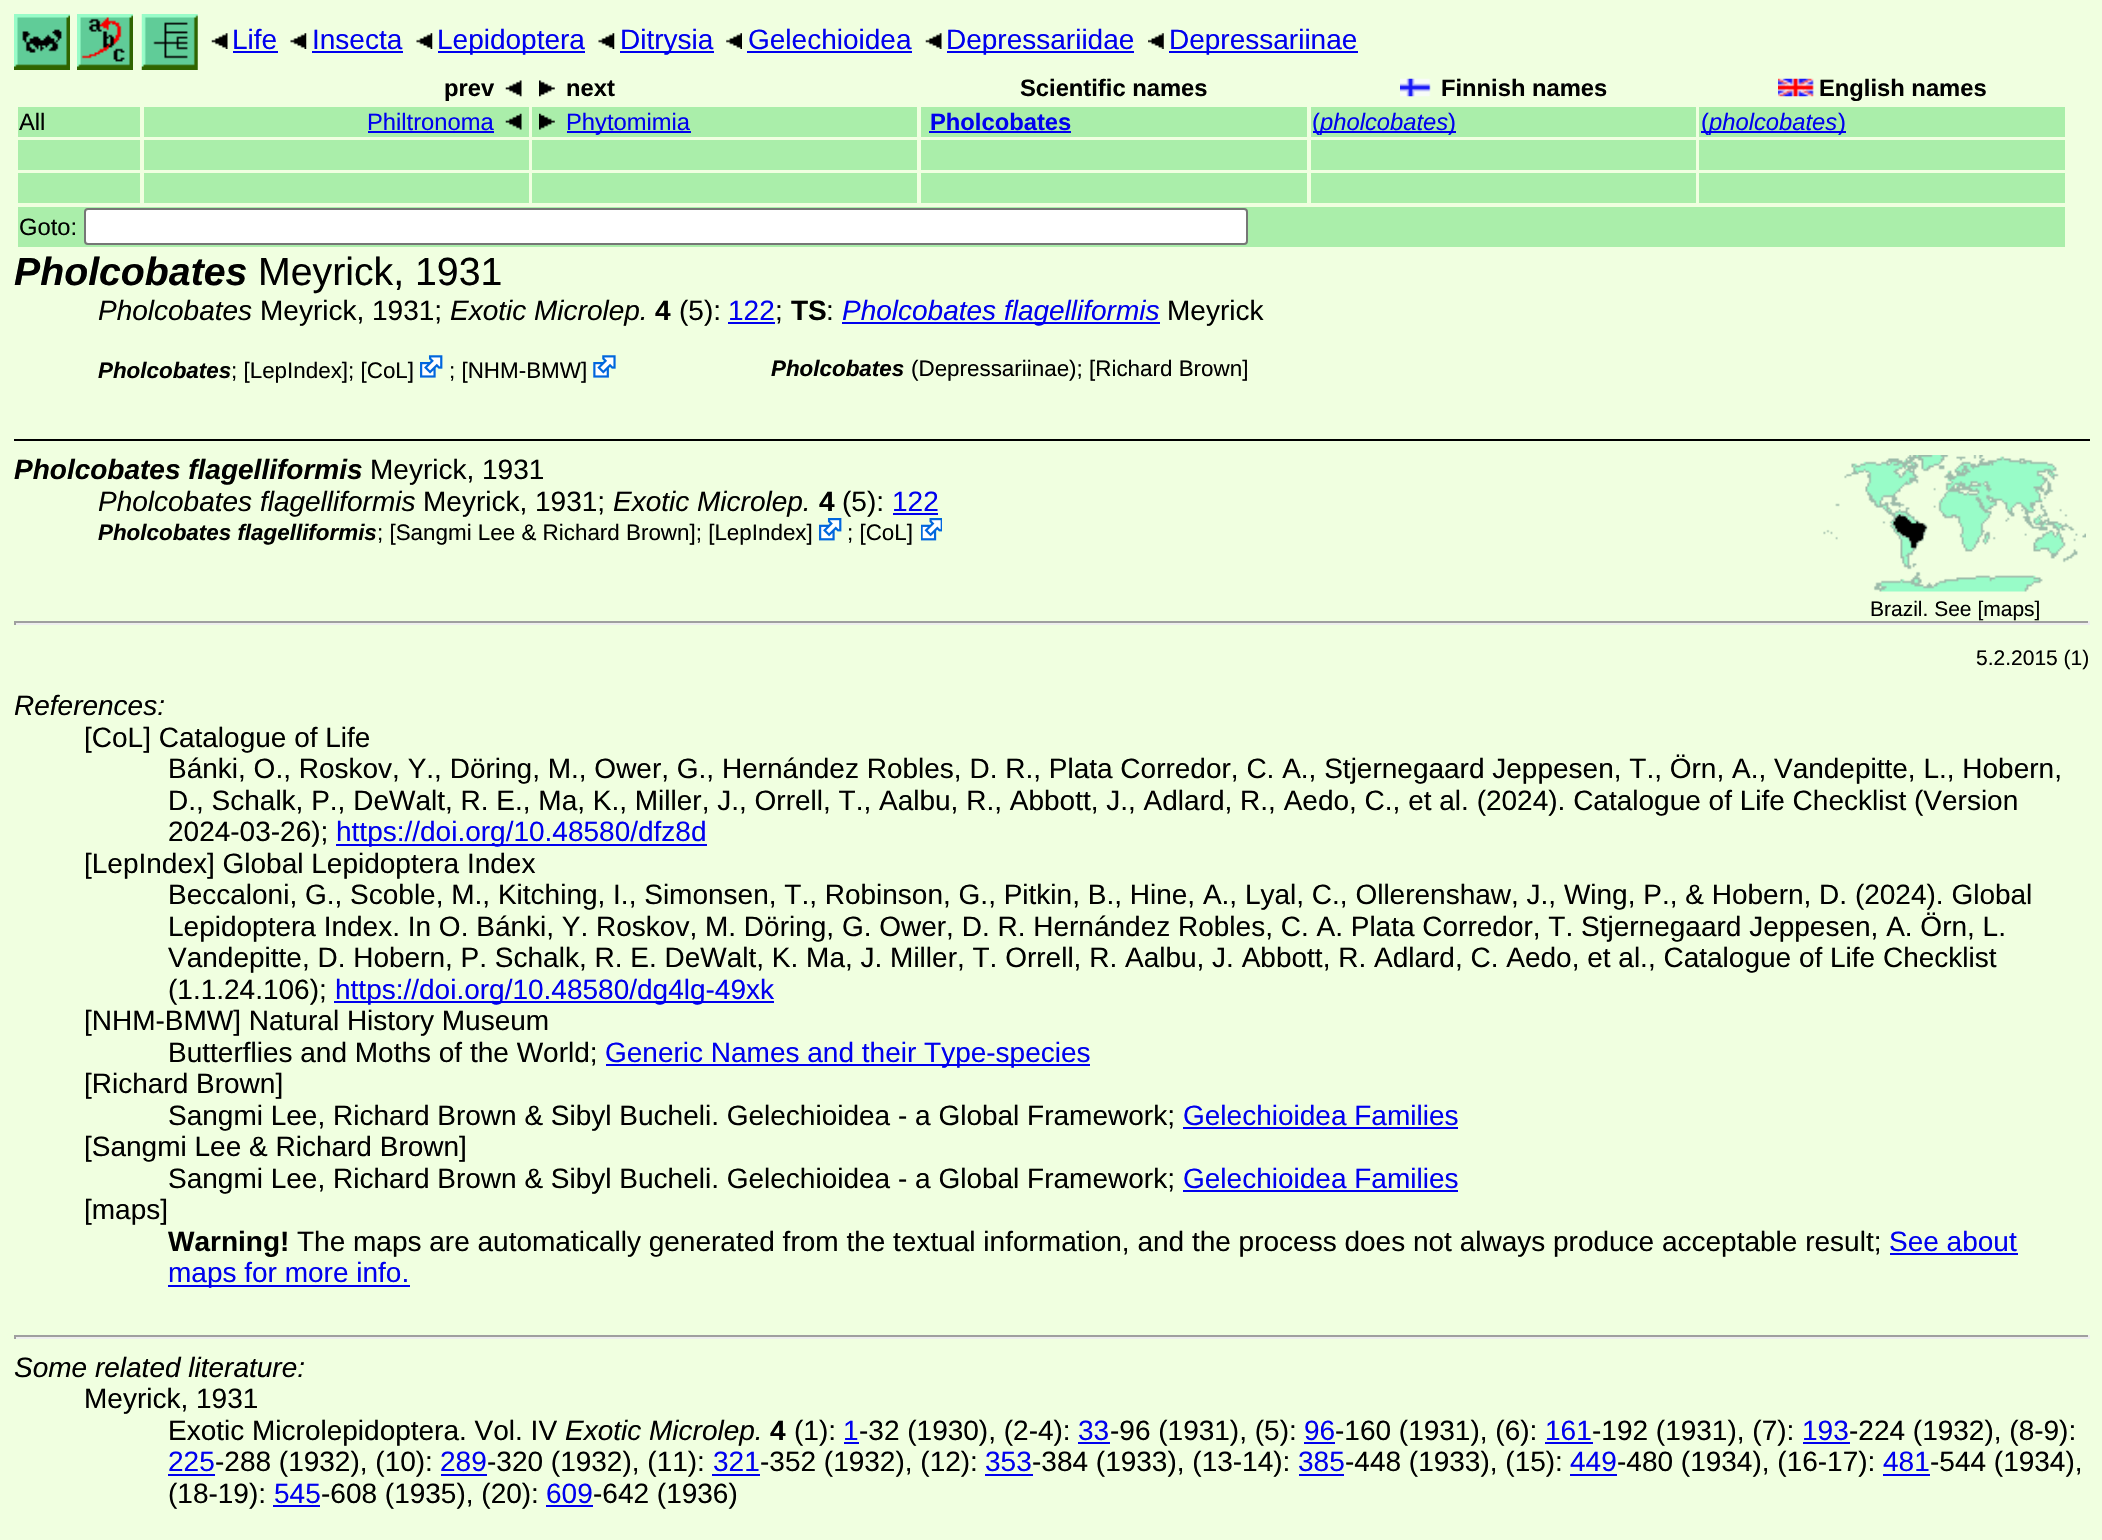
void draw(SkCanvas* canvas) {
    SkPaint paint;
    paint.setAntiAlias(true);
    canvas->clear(0xFFF0FFE0);
    canvas->drawImageRect(SkImages::DeferredFromEncodedData(SkData::MakeFromFileName("img1.png")), SkRect::MakeXYWH(14, 14, 56, 56), SkSamplingOptions());
    canvas->drawImageRect(SkImages::DeferredFromEncodedData(SkData::MakeFromFileName("img2.png")), SkRect::MakeXYWH(77, 14, 56, 56), SkSamplingOptions());
    canvas->drawImageRect(SkImages::DeferredFromEncodedData(SkData::MakeFromFileName("img3.png")), SkRect::MakeXYWH(141, 14, 57, 56), SkSamplingOptions());
    canvas->drawImageRect(SkImages::DeferredFromEncodedData(SkData::MakeFromFileName("img4.png")), SkRect::MakeXYWH(211, 33, 17, 16), SkSamplingOptions());
    SkFont font1(fontMgr->matchFamilyStyle("Liberation Sans", SkFontStyle::Normal()), 28);
    font1.setSubpixel(true);
    paint.setColor(0xFF0000EE);
    canvas->drawString("Life", 232, 49, font1, paint);
    canvas->drawRect(SkRect::MakeXYWH(233, 51, 45, 2), paint);
    canvas->drawImageRect(SkImages::DeferredFromEncodedData(SkData::MakeFromFileName("img5.png")), SkRect::MakeXYWH(290, 33, 17, 16), SkSamplingOptions());
    canvas->drawString("Insecta", 312, 49, font1, paint);
    canvas->drawRect(SkRect::MakeXYWH(312, 51, 91, 2), paint);
    canvas->drawImageRect(SkImages::DeferredFromEncodedData(SkData::MakeFromFileName("img6.png")), SkRect::MakeXYWH(416, 33, 17, 16), SkSamplingOptions());
    canvas->drawRect(SkRect::MakeXYWH(438, 51, 147, 2), paint);
    canvas->drawString("Lepidoptera", 437, 49, font1, paint);
    canvas->drawImageRect(SkImages::DeferredFromEncodedData(SkData::MakeFromFileName("img7.png")), SkRect::MakeXYWH(598, 33, 17, 16), SkSamplingOptions());
    canvas->drawRect(SkRect::MakeXYWH(620, 51, 94, 2), paint);
    canvas->drawString("Ditrysia", 620, 49, font1, paint);
    canvas->drawImageRect(SkImages::DeferredFromEncodedData(SkData::MakeFromFileName("img8.png")), SkRect::MakeXYWH(726, 33, 16, 16), SkSamplingOptions());
    canvas->drawString("Gelechioidea", 748, 49, font1, paint);
    canvas->drawRect(SkRect::MakeXYWH(747, 51, 165, 2), paint);
    canvas->drawImageRect(SkImages::DeferredFromEncodedData(SkData::MakeFromFileName("img4.png")), SkRect::MakeXYWH(925, 33, 17, 16), SkSamplingOptions());
    canvas->drawRect(SkRect::MakeXYWH(947, 51, 187, 2), paint);
    canvas->drawString("Depressariidae", 946, 49, font1, paint);
    canvas->drawImageRect(SkImages::DeferredFromEncodedData(SkData::MakeFromFileName("img9.png")), SkRect::MakeXYWH(1148, 33, 16, 16), SkSamplingOptions());
    canvas->drawRect(SkRect::MakeXYWH(1169, 51, 189, 2), paint);
    canvas->drawString("Depressariinae", 1169, 49, font1, paint);
    SkFont font2(fontMgr->matchFamilyStyle("Liberation Sans", SkFontStyle::Bold()), 23.75f);
    font2.setSubpixel(true);
    paint.setColor(0xFF000000);
    canvas->drawString("prev", 444, 96, font2, paint);
    canvas->drawImageRect(SkImages::DeferredFromEncodedData(SkData::MakeFromFileName("img10.png")), SkRect::MakeXYWH(505, 80, 17, 17), SkSamplingOptions());
    canvas->drawImageRect(SkImages::DeferredFromEncodedData(SkData::MakeFromFileName("img11.png")), SkRect::MakeXYWH(539, 80, 16, 17), SkSamplingOptions());
    canvas->drawString("next", 566, 96, font2, paint);
    canvas->drawString("Scientific names", 1020, 96, font2, paint);
    canvas->drawImageRect(SkImages::DeferredFromEncodedData(SkData::MakeFromFileName("img12.png")), SkRect::MakeXYWH(1400, 78, 31, 19), SkSamplingOptions());
    canvas->drawString("Finnish names", 1441, 96, font2, paint);
    canvas->drawImageRect(SkImages::DeferredFromEncodedData(SkData::MakeFromFileName("img13.png")), SkRect::MakeXYWH(1778, 78, 36, 19), SkSamplingOptions());
    canvas->drawString("English names", 1819, 96, font2, paint);
    paint.setColor(0xFFAAEEAA);
    canvas->drawRect(SkRect::MakeXYWH(18, 107, 122, 30), paint);
    SkFont font3(fontMgr->matchFamilyStyle("Liberation Sans", SkFontStyle::Normal()), 23.75f);
    font3.setSubpixel(true);
    paint.setColor(0xFF000000);
    canvas->drawString("All", 19, 130, font3, paint);
    paint.setColor(0xFFAAEEAA);
    canvas->drawRect(SkRect::MakeXYWH(144, 107, 385, 30), paint);
    paint.setColor(0xFF0000EE);
    canvas->drawString("Philtronoma", 367, 130, font3, paint);
    canvas->drawRect(SkRect::MakeXYWH(368, 131, 126, 2), paint);
    canvas->drawImageRect(SkImages::DeferredFromEncodedData(SkData::MakeFromFileName("img14.png")), SkRect::MakeXYWH(505, 113, 17, 17), SkSamplingOptions());
    paint.setColor(0xFFAAEEAA);
    canvas->drawRect(SkRect::MakeXYWH(532, 107, 385, 30), paint);
    canvas->drawImageRect(SkImages::DeferredFromEncodedData(SkData::MakeFromFileName("img15.png")), SkRect::MakeXYWH(539, 113, 16, 17), SkSamplingOptions());
    paint.setColor(0xFF0000EE);
    canvas->drawRect(SkRect::MakeXYWH(567, 131, 124, 2), paint);
    canvas->drawString("Phytomimia", 566, 130, font3, paint);
    paint.setColor(0xFFAAEEAA);
    canvas->drawRect(SkRect::MakeXYWH(921, 107, 386, 30), paint);
    paint.setColor(0xFF0000EE);
    canvas->drawString("Pholcobates", 930, 130, font2, paint);
    canvas->drawRect(SkRect::MakeXYWH(929, 131, 142, 2), paint);
    paint.setColor(0xFFAAEEAA);
    canvas->drawRect(SkRect::MakeXYWH(1311, 107, 385, 30), paint);
    paint.setColor(0xFF0000EE);
    canvas->drawRect(SkRect::MakeXYWH(1313, 131, 7, 2), paint);
    canvas->drawString("(", 1312, 130, font3, paint);
    canvas->drawRect(SkRect::MakeXYWH(1320, 131, 136, 2), paint);
    SkFont font4(fontMgr->matchFamilyStyle("Liberation Sans", SkFontStyle::Italic()), 23.75f);
    font4.setSubpixel(true);
    canvas->drawString("pholcobates", 1320, 130, font4, paint);
    canvas->drawString(")", 1448, 130, font3, paint);
    paint.setColor(0xFFAAEEAA);
    canvas->drawRect(SkRect::MakeXYWH(1699, 107, 366, 30), paint);
    paint.setColor(0xFF0000EE);
    canvas->drawRect(SkRect::MakeXYWH(1701, 131, 145, 2), paint);
    canvas->drawString("(", 1701, 130, font3, paint);
    canvas->drawString("pholcobates", 1709, 130, font4, paint);
    canvas->drawString(")", 1838, 130, font3, paint);
    paint.setColor(0xFFAAEEAA);
    canvas->drawRect(SkRect::MakeXYWH(18, 140, 122, 30), paint);
    canvas->drawRect(SkRect::MakeXYWH(144, 140, 385, 30), paint);
    canvas->drawRect(SkRect::MakeXYWH(532, 140, 385, 30), paint);
    canvas->drawRect(SkRect::MakeXYWH(921, 140, 386, 30), paint);
    canvas->drawRect(SkRect::MakeXYWH(1311, 140, 385, 30), paint);
    canvas->drawRect(SkRect::MakeXYWH(1699, 140, 366, 30), paint);
    canvas->drawRect(SkRect::MakeXYWH(18, 173, 122, 30), paint);
    canvas->drawRect(SkRect::MakeXYWH(144, 173, 385, 30), paint);
    canvas->drawRect(SkRect::MakeXYWH(532, 173, 385, 30), paint);
    canvas->drawRect(SkRect::MakeXYWH(921, 173, 386, 30), paint);
    canvas->drawRect(SkRect::MakeXYWH(1311, 173, 385, 30), paint);
    canvas->drawRect(SkRect::MakeXYWH(1699, 173, 366, 30), paint);
    canvas->drawRect(SkRect::MakeXYWH(18, 207, 2047, 40), paint);
    paint.setColor(0xFF000000);
    canvas->drawString("Goto:", 19, 235, font3, paint);
    paint.setColor(0xFFFFFFFF);
    canvas->drawRoundRect(SkRect::MakeXYWH(85, 209, 1162, 35), 3, 3, paint);
    paint.setStyle(SkPaint::kStroke_Style);
    paint.setStrokeWidth(2);
    paint.setColor(0xFF767676);
    canvas->drawRoundRect(SkRect::MakeXYWH(85, 209, 1162, 35), 3, 3, paint);
    SkFont font5(fontMgr->matchFamilyStyle("Liberation Sans", SkFontStyle::BoldItalic()), 39.25f);
    font5.setSubpixel(true);
    paint.setStyle(SkPaint::kFill_Style);
    paint.setColor(0xFF000000);
    canvas->drawString("Pholcobates", 14, 285, font5, paint);
    SkFont font6(fontMgr->matchFamilyStyle("Liberation Sans", SkFontStyle::Normal()), 39.25f);
    font6.setSubpixel(true);
    canvas->drawString("Meyrick, 1931", 258, 285, font6, paint);
    SkFont font7(fontMgr->matchFamilyStyle("Liberation Sans", SkFontStyle::Italic()), 28);
    font7.setSubpixel(true);
    canvas->drawString("Pholcobates", 98, 320, font7, paint);
    canvas->drawString("Meyrick, 1931;", 260, 320, font1, paint);
    canvas->drawString("Exotic Microlep.", 450, 320, font7, paint);
    SkFont font8(fontMgr->matchFamilyStyle("Liberation Sans", SkFontStyle::Bold()), 28);
    font8.setSubpixel(true);
    canvas->drawString("4", 655, 320, font8, paint);
    canvas->drawString("(5):", 679, 320, font1, paint);
    paint.setColor(0xFF0000EE);
    canvas->drawString("122", 728, 320, font1, paint);
    canvas->drawRect(SkRect::MakeXYWH(728, 322, 47, 2), paint);
    paint.setColor(0xFF000000);
    canvas->drawString(";", 775, 320, font1, paint);
    canvas->drawString("TS", 791, 320, font8, paint);
    canvas->drawString(":", 826, 320, font1, paint);
    paint.setColor(0xFF0000EE);
    canvas->drawRect(SkRect::MakeXYWH(842, 322, 318, 2), paint);
    canvas->drawString("Pholcobates flagelliformis", 842, 320, font7, paint);
    paint.setColor(0xFF000000);
    canvas->drawString("Meyrick", 1167, 320, font1, paint);
    SkFont font9(fontMgr->matchFamilyStyle("Liberation Sans", SkFontStyle::BoldItalic()), 22.4f);
    font9.setSubpixel(true);
    canvas->drawString("Pholcobates", 98, 378, font9, paint);
    SkFont font10(fontMgr->matchFamilyStyle("Liberation Sans", SkFontStyle::Normal()), 22.4f);
    font10.setSubpixel(true);
    canvas->drawString("; [LepIndex]; [CoL]", 231, 378, font10, paint);
    canvas->drawImageRect(SkImages::DeferredFromEncodedData(SkData::MakeFromFileName("img16.png")), SkRect::MakeXYWH(420, 355, 23, 23), SkSamplingOptions());
    canvas->drawString("; [NHM-BMW]", 449, 378, font10, paint);
    canvas->drawImageRect(SkImages::DeferredFromEncodedData(SkData::MakeFromFileName("img17.png")), SkRect::MakeXYWH(593, 355, 23, 23), SkSamplingOptions());
    canvas->drawString("Pholcobates", 771, 376, font9, paint);
    canvas->drawString("(Depressariinae); [Richard Brown]", 911, 376, font10, paint);
    canvas->drawRect(SkRect::MakeXYWH(14, 439, 2076, 2), paint);
    SkFont font11(fontMgr->matchFamilyStyle("Liberation Sans", SkFontStyle::BoldItalic()), 28);
    font11.setSubpixel(true);
    canvas->drawString("Pholcobates flagelliformis", 14, 479, font11, paint);
    canvas->drawString("Meyrick, 1931", 370, 479, font1, paint);
    canvas->drawString("Pholcobates flagelliformis", 98, 511, font7, paint);
    canvas->drawString("Meyrick, 1931;", 423, 511, font1, paint);
    canvas->drawString("Exotic Microlep.", 613, 511, font7, paint);
    canvas->drawString("4", 819, 511, font8, paint);
    canvas->drawString("(5):", 842, 511, font1, paint);
    paint.setColor(0xFF0000EE);
    canvas->drawString("122", 892, 511, font1, paint);
    canvas->drawRect(SkRect::MakeXYWH(893, 513, 45, 2), paint);
    paint.setColor(0xFF000000);
    canvas->drawString("Pholcobates flagelliformis", 98, 540, font9, paint);
    canvas->drawString("; [Sangmi Lee & Richard Brown]; [LepIndex]", 377, 540, font10, paint);
    canvas->drawImageRect(SkImages::DeferredFromEncodedData(SkData::MakeFromFileName("img18.png")), SkRect::MakeXYWH(819, 518, 23, 23), SkSamplingOptions());
    canvas->drawString("; [CoL]", 847, 540, font10, paint);
    canvas->drawImageRect(SkImages::DeferredFromEncodedData(SkData::MakeFromFileName("img19.png")), SkRect::MakeXYWH(921, 518, 21, 23), SkSamplingOptions());
    canvas->drawImageRect(SkImages::DeferredFromEncodedData(SkData::MakeFromFileName("img20.png")), SkRect::MakeXYWH(1823, 455, 263, 137), SkSamplingOptions());
    SkFont font12(fontMgr->matchFamilyStyle("Liberation Sans", SkFontStyle::Normal()), 21);
    font12.setSubpixel(true);
    canvas->drawString("Brazil. See [maps]", 1870, 616, font12, paint);
    paint.setColor(0xFF9F9F9F);
    canvas->drawRect(SkRect::MakeXYWH(14, 621, 2076, 2), paint);
    paint.setColor(0xFFEEEEEE);
    canvas->drawRect(SkRect::MakeXYWH(2088, 621, 2, 4), paint);
    canvas->drawRect(SkRect::MakeXYWH(14, 623, 2076, 2), paint);
    paint.setColor(0xFF9F9F9F);
    canvas->drawRect(SkRect::MakeXYWH(14, 621, 2, 4), paint);
    paint.setColor(0xFF000000);
    canvas->drawString("5.2.2015 (1)", 1976, 665, font12, paint);
    canvas->drawString("References:", 14, 715, font7, paint);
    canvas->drawString("[CoL] Catalogue of Life", 84, 747, font1, paint);
    canvas->drawString("Bánki, O., Roskov, Y., Döring, M., Ower, G., Hernández Robles, D. R., Plata Corredor, C. A., Stjernegaard Jeppesen, T., Örn, A., Vandepitte, L., Hobern,", 168, 778, font1, paint);
    canvas->drawString("D., Schalk, P., DeWalt, R. E., Ma, K., Miller, J., Orrell, T., Aalbu, R., Abbott, J., Adlard, R., Aedo, C., et al. (2024). Catalogue of Life Checklist (Version", 168, 810, font1, paint);
    canvas->drawString("2024-03-26);", 168, 841, font1, paint);
    paint.setColor(0xFF0000EE);
    canvas->drawRect(SkRect::MakeXYWH(336, 844, 371, 2), paint);
    canvas->drawString("https://doi.org/10.48580/dfz8d", 336, 841, font1, paint);
    paint.setColor(0xFF000000);
    canvas->drawString("[LepIndex] Global Lepidoptera Index", 84, 873, font1, paint);
    canvas->drawString("Beccaloni, G., Scoble, M., Kitching, I., Simonsen, T., Robinson, G., Pitkin, B., Hine, A., Lyal, C., Ollerenshaw, J., Wing, P., & Hobern, D. (2024). Global", 168, 904, font1, paint);
    canvas->drawString("Lepidoptera Index. In O. Bánki, Y. Roskov, M. Döring, G. Ower, D. R. Hernández Robles, C. A. Plata Corredor, T. Stjernegaard Jeppesen, A. Örn, L.", 168, 936, font1, paint);
    canvas->drawString("Vandepitte, D. Hobern, P. Schalk, R. E. DeWalt, K. Ma, J. Miller, T. Orrell, R. Aalbu, J. Abbott, R. Adlard, C. Aedo, et al., Catalogue of Life Checklist", 168, 967, font1, paint);
    canvas->drawString("(1.1.24.106);", 168, 999, font1, paint);
    paint.setColor(0xFF0000EE);
    canvas->drawRect(SkRect::MakeXYWH(334, 1001, 440, 2), paint);
    canvas->drawString("https://doi.org/10.48580/dg4lg-49xk", 335, 999, font1, paint);
    paint.setColor(0xFF000000);
    canvas->drawString("[NHM-BMW] Natural History Museum", 84, 1030, font1, paint);
    canvas->drawString("Butterflies and Moths of the World;", 168, 1062, font1, paint);
    paint.setColor(0xFF0000EE);
    canvas->drawRect(SkRect::MakeXYWH(606, 1064, 484, 2), paint);
    canvas->drawString("Generic Names and their Type-species", 605, 1062, font1, paint);
    paint.setColor(0xFF000000);
    canvas->drawString("[Richard Brown]", 84, 1093, font1, paint);
    canvas->drawString("Sangmi Lee, Richard Brown & Sibyl Bucheli. Gelechioidea - a Global Framework;", 168, 1125, font1, paint);
    paint.setColor(0xFF0000EE);
    canvas->drawString("Gelechioidea Families", 1183, 1125, font1, paint);
    canvas->drawRect(SkRect::MakeXYWH(1183, 1127, 275, 2), paint);
    paint.setColor(0xFF000000);
    canvas->drawString("[Sangmi Lee & Richard Brown]", 84, 1156, font1, paint);
    canvas->drawString("Sangmi Lee, Richard Brown & Sibyl Bucheli. Gelechioidea - a Global Framework;", 168, 1188, font1, paint);
    paint.setColor(0xFF0000EE);
    canvas->drawString("Gelechioidea Families", 1183, 1188, font1, paint);
    canvas->drawRect(SkRect::MakeXYWH(1183, 1190, 275, 2), paint);
    paint.setColor(0xFF000000);
    canvas->drawString("[maps]", 84, 1219, font1, paint);
    canvas->drawString("Warning!", 168, 1251, font8, paint);
    canvas->drawString("The maps are automatically generated from the textual information, and the process does not always produce acceptable result;", 297, 1251, font1, paint);
    paint.setColor(0xFF0000EE);
    canvas->drawString("See about", 1889, 1251, font1, paint);
    canvas->drawRect(SkRect::MakeXYWH(1890, 1253, 128, 2), paint);
    canvas->drawRect(SkRect::MakeXYWH(168, 1285, 242, 2), paint);
    canvas->drawString("maps for more info.", 168, 1282, font1, paint);
    paint.setColor(0xFF9F9F9F);
    canvas->drawRect(SkRect::MakeXYWH(14, 1335, 2076, 2), paint);
    paint.setColor(0xFFEEEEEE);
    canvas->drawRect(SkRect::MakeXYWH(2088, 1335, 2, 4), paint);
    canvas->drawRect(SkRect::MakeXYWH(14, 1337, 2076, 2), paint);
    paint.setColor(0xFF9F9F9F);
    canvas->drawRect(SkRect::MakeXYWH(14, 1335, 2, 4), paint);
    paint.setColor(0xFF000000);
    canvas->drawString("Some related literature:", 14, 1377, font7, paint);
    canvas->drawString("Meyrick, 1931", 84, 1408, font1, paint);
    canvas->drawString("Exotic Microlepidoptera. Vol. IV", 168, 1440, font1, paint);
    canvas->drawString("Exotic Microlep.", 565, 1440, font7, paint);
    canvas->drawString("4", 770, 1440, font8, paint);
    canvas->drawString("(1):", 794, 1440, font1, paint);
    paint.setColor(0xFF0000EE);
    canvas->drawString("1", 843, 1440, font1, paint);
    canvas->drawRect(SkRect::MakeXYWH(844, 1442, 15, 2), paint);
    paint.setColor(0xFF000000);
    canvas->drawString("-32 (1930), (2-4):", 859, 1440, font1, paint);
    paint.setColor(0xFF0000EE);
    canvas->drawString("33", 1078, 1440, font1, paint);
    canvas->drawRect(SkRect::MakeXYWH(1078, 1442, 32, 2), paint);
    paint.setColor(0xFF000000);
    canvas->drawString("-96 (1931), (5):", 1110, 1440, font1, paint);
    paint.setColor(0xFF0000EE);
    canvas->drawString("96", 1304, 1440, font1, paint);
    canvas->drawRect(SkRect::MakeXYWH(1304, 1442, 31, 2), paint);
    paint.setColor(0xFF000000);
    canvas->drawString("-160 (1931), (6):", 1335, 1440, font1, paint);
    paint.setColor(0xFF0000EE);
    canvas->drawString("161", 1545, 1440, font1, paint);
    canvas->drawRect(SkRect::MakeXYWH(1545, 1442, 48, 2), paint);
    paint.setColor(0xFF000000);
    canvas->drawString("-192 (1931), (7):", 1592, 1440, font1, paint);
    paint.setColor(0xFF0000EE);
    canvas->drawString("193", 1802, 1440, font1, paint);
    canvas->drawRect(SkRect::MakeXYWH(1803, 1442, 47, 2), paint);
    paint.setColor(0xFF000000);
    canvas->drawString("-224 (1932), (8-9):", 1849, 1440, font1, paint);
    paint.setColor(0xFF0000EE);
    canvas->drawString("225", 168, 1471, font1, paint);
    canvas->drawRect(SkRect::MakeXYWH(168, 1474, 47, 2), paint);
    paint.setColor(0xFF000000);
    canvas->drawString("-288 (1932), (10):", 215, 1471, font1, paint);
    paint.setColor(0xFF0000EE);
    canvas->drawString("289", 440, 1471, font1, paint);
    canvas->drawRect(SkRect::MakeXYWH(441, 1474, 46, 2), paint);
    paint.setColor(0xFF000000);
    canvas->drawString("-320 (1932), (11):", 487, 1471, font1, paint);
    paint.setColor(0xFF0000EE);
    canvas->drawString("321", 713, 1471, font1, paint);
    canvas->drawRect(SkRect::MakeXYWH(712, 1474, 48, 2), paint);
    paint.setColor(0xFF000000);
    canvas->drawString("-352 (1932), (12):", 760, 1471, font1, paint);
    paint.setColor(0xFF0000EE);
    canvas->drawString("353", 985, 1471, font1, paint);
    canvas->drawRect(SkRect::MakeXYWH(985, 1474, 48, 2), paint);
    paint.setColor(0xFF000000);
    canvas->drawString("-384 (1933), (13-14):", 1032, 1471, font1, paint);
    paint.setColor(0xFF0000EE);
    canvas->drawString("385", 1298, 1471, font1, paint);
    canvas->drawRect(SkRect::MakeXYWH(1299, 1474, 45, 2), paint);
    paint.setColor(0xFF000000);
    canvas->drawString("-448 (1933), (15):", 1345, 1471, font1, paint);
    paint.setColor(0xFF0000EE);
    canvas->drawString("449", 1570, 1471, font1, paint);
    canvas->drawRect(SkRect::MakeXYWH(1570, 1474, 47, 2), paint);
    paint.setColor(0xFF000000);
    canvas->drawString("-480 (1934), (16-17):", 1617, 1471, font1, paint);
    paint.setColor(0xFF0000EE);
    canvas->drawString("481", 1883, 1471, font1, paint);
    canvas->drawRect(SkRect::MakeXYWH(1883, 1474, 47, 2), paint);
    paint.setColor(0xFF000000);
    canvas->drawString("-544 (1934),", 1930, 1471, font1, paint);
    canvas->drawString("(18-19):", 168, 1503, font1, paint);
    paint.setColor(0xFF0000EE);
    canvas->drawString("545", 274, 1503, font1, paint);
    canvas->drawRect(SkRect::MakeXYWH(273, 1505, 47, 2), paint);
    paint.setColor(0xFF000000);
    canvas->drawString("-608 (1935), (20):", 321, 1503, font1, paint);
    paint.setColor(0xFF0000EE);
    canvas->drawString("609", 546, 1503, font1, paint);
    canvas->drawRect(SkRect::MakeXYWH(546, 1505, 47, 2), paint);
    paint.setColor(0xFF000000);
    canvas->drawString("-642 (1936)", 593, 1503, font1, paint);
}
